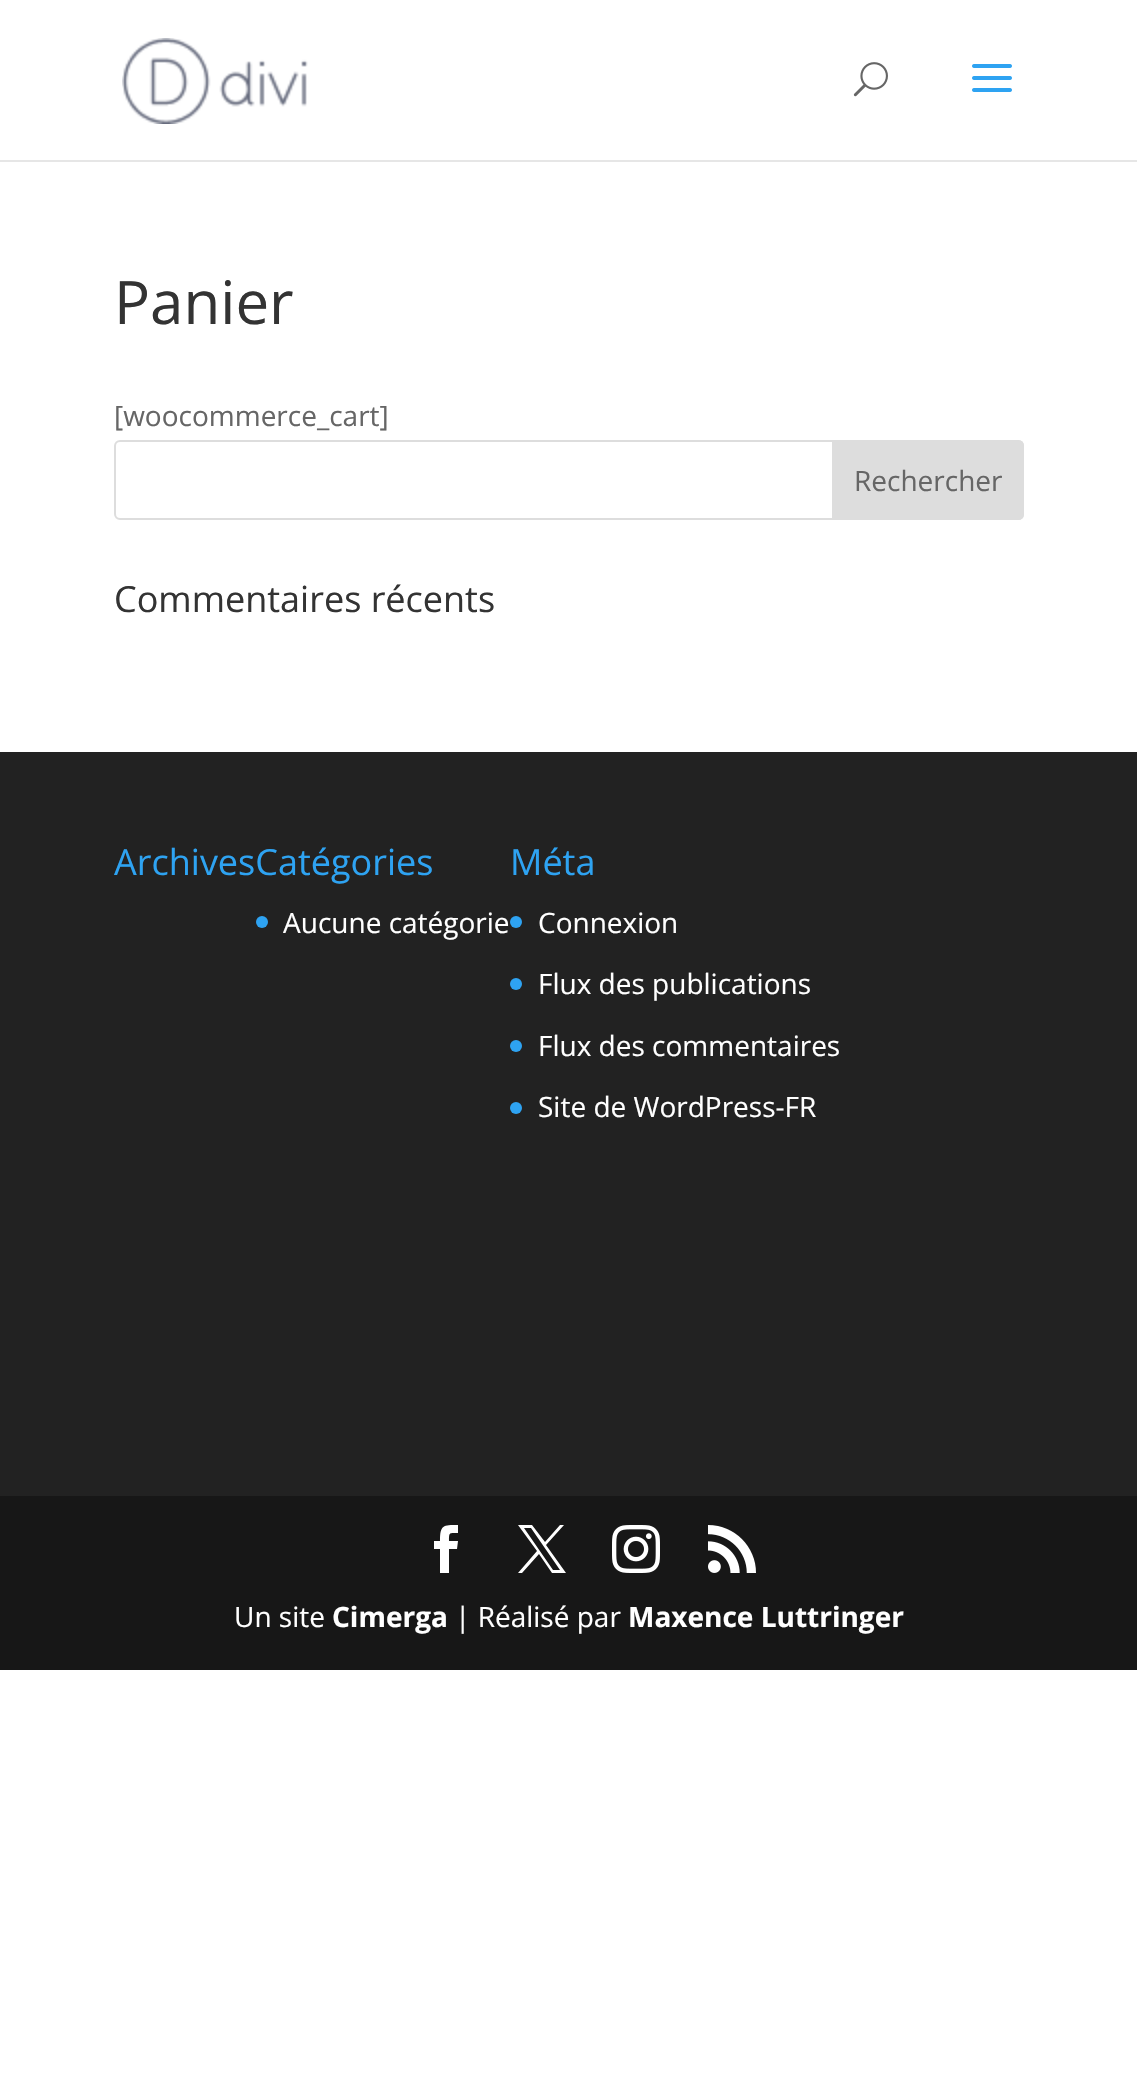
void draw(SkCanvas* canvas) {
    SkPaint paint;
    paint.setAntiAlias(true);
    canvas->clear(0xFFFFFFFF);
    paint.setColor(0xFFE6E6E6);
    canvas->drawRect(SkRect::MakeXYWH(0, 160, 1137, 2), paint);
    canvas->drawImageRect(SkImages::DeferredFromEncodedData(SkData::MakeFromFileName("img1.png")), SkRect::MakeXYWH(122, 38, 186, 86), SkSamplingOptions());
    canvas->drawImageRect(SkImages::DeferredFromEncodedData(SkData::MakeFromFileName("img2.png")), SkRect::MakeXYWH(853, 62, 35, 35), SkSamplingOptions());
    canvas->drawImageRect(SkImages::DeferredFromEncodedData(SkData::MakeFromFileName("img3.png")), SkRect::MakeXYWH(972, 64, 40, 28), SkSamplingOptions());
    SkFont font1(fontMgr->matchFamilyStyle("Open Sans", SkFontStyle::Normal()), 60);
    font1.setSubpixel(true);
    paint.setColor(0xFF333333);
    canvas->drawString("Panier", 114, 324, font1, paint);
    SkFont font2(fontMgr->matchFamilyStyle("Open Sans", SkFontStyle::Normal()), 28);
    font2.setSubpixel(true);
    paint.setColor(0xFF666666);
    canvas->drawString("[woocommerce_cart]", 114, 426, font2, paint);
    paint.setStyle(SkPaint::kStroke_Style);
    paint.setStrokeWidth(2);
    paint.setColor(0xFFDDDDDD);
    canvas->drawRoundRect(SkRect::MakeXYWH(115, 441, 908, 78), 5, 5, paint);
    paint.setStyle(SkPaint::kFill_Style);
    canvas->drawPath(SkPathBuilder().moveTo(833, 441).lineTo(1018, 441).cubicTo(1021, 441, 1023, 443, 1023, 446).lineTo(1023, 514).cubicTo(1023, 517, 1021, 519, 1018, 519).lineTo(833, 519).close().detach(), paint);
    paint.setStyle(SkPaint::kStroke_Style);
    canvas->drawPath(SkPathBuilder().moveTo(833, 441).lineTo(1018, 441).cubicTo(1021, 441, 1023, 443, 1023, 446).lineTo(1023, 514).cubicTo(1023, 517, 1021, 519, 1018, 519).lineTo(833, 519).close().detach(), paint);
    paint.setStyle(SkPaint::kFill_Style);
    paint.setColor(0xFF666666);
    canvas->drawString("Rechercher", 854, 491, font2, paint);
    SkFont font3(fontMgr->matchFamilyStyle("Open Sans", SkFontStyle::Normal()), 36);
    font3.setSubpixel(true);
    paint.setColor(0xFF333333);
    canvas->drawString("Commentaires récents", 114, 612, font3, paint);
    paint.setColor(0xFF222222);
    canvas->drawRect(SkRect::MakeXYWH(0, 752, 1137, 744), paint);
    paint.setColor(0xFF2EA3F2);
    canvas->drawString("ArchivesCatégories", 114, 875, font3, paint);
    canvas->drawString("Méta", 510, 875, font3, paint);
    canvas->drawCircle(516, 922, 6, paint);
    paint.setColor(0xFFFFFFFF);
    canvas->drawString("Connexion", 538, 933, font2, paint);
    paint.setColor(0xFF2EA3F2);
    canvas->drawCircle(516, 984, 6, paint);
    paint.setColor(0xFFFFFFFF);
    canvas->drawString("Flux des publications", 538, 994, font2, paint);
    paint.setColor(0xFF2EA3F2);
    canvas->drawCircle(516, 1046, 6, paint);
    paint.setColor(0xFFFFFFFF);
    canvas->drawString("Flux des commentaires", 538, 1056, font2, paint);
    paint.setColor(0xFF2EA3F2);
    canvas->drawCircle(516, 1108, 6, paint);
    paint.setColor(0xFFFFFFFF);
    canvas->drawString("Site de WordPress-FR", 538, 1117, font2, paint);
    paint.setColor(0xFF2EA3F2);
    canvas->drawCircle(262, 922, 6, paint);
    paint.setColor(0xFFFFFFFF);
    canvas->drawString("Aucune catégorie", 283, 933, font2, paint);
    paint.setColor(0xFF171717);
    canvas->drawRect(SkRect::MakeXYWH(0, 1496, 1137, 174), paint);
    paint.setColor(0xFFFFFFFF);
    canvas->drawPath(SkPathBuilder().moveTo(440, 1573).lineTo(449, 1573).lineTo(449, 1549).lineTo(457, 1549).lineTo(458, 1541).lineTo(449, 1541).cubicTo(449, 1532, 449, 1533, 458, 1533).lineTo(458, 1525).cubicTo(443, 1525, 440, 1525, 440, 1541).lineTo(434, 1541).lineTo(434, 1549).lineTo(440, 1549).close().detach(), paint);
    canvas->drawPath(SkPathBuilder().moveTo(518, 1525).lineTo(537, 1551).lineTo(518, 1573).lineTo(522, 1573).lineTo(539, 1554).lineTo(552, 1573).lineTo(566, 1573).lineTo(546, 1545).lineTo(564, 1525).lineTo(560, 1525).lineTo(545, 1542).lineTo(532, 1525).close().moveTo(524, 1528).lineTo(531, 1528).lineTo(560, 1570).lineTo(553, 1570).close().detach(), paint);
    canvas->drawImageRect(SkImages::DeferredFromEncodedData(SkData::MakeFromFileName("img4.png")), SkRect::MakeXYWH(612, 1525, 48, 48), SkSamplingOptions());
    canvas->drawImageRect(SkImages::DeferredFromEncodedData(SkData::MakeFromFileName("img5.png")), SkRect::MakeXYWH(708, 1525, 48, 48), SkSamplingOptions());
    canvas->drawString("Un site", 234, 1627, font2, paint);
    SkFont font4(fontMgr->matchFamilyStyle("Open Sans", SkFontStyle::Bold()), 28);
    font4.setSubpixel(true);
    canvas->drawString("Cimerga", 332, 1627, font4, paint);
    canvas->drawString("| Réalisé par", 455, 1627, font2, paint);
    canvas->drawString("Maxence Luttringer", 628, 1627, font4, paint);
}
